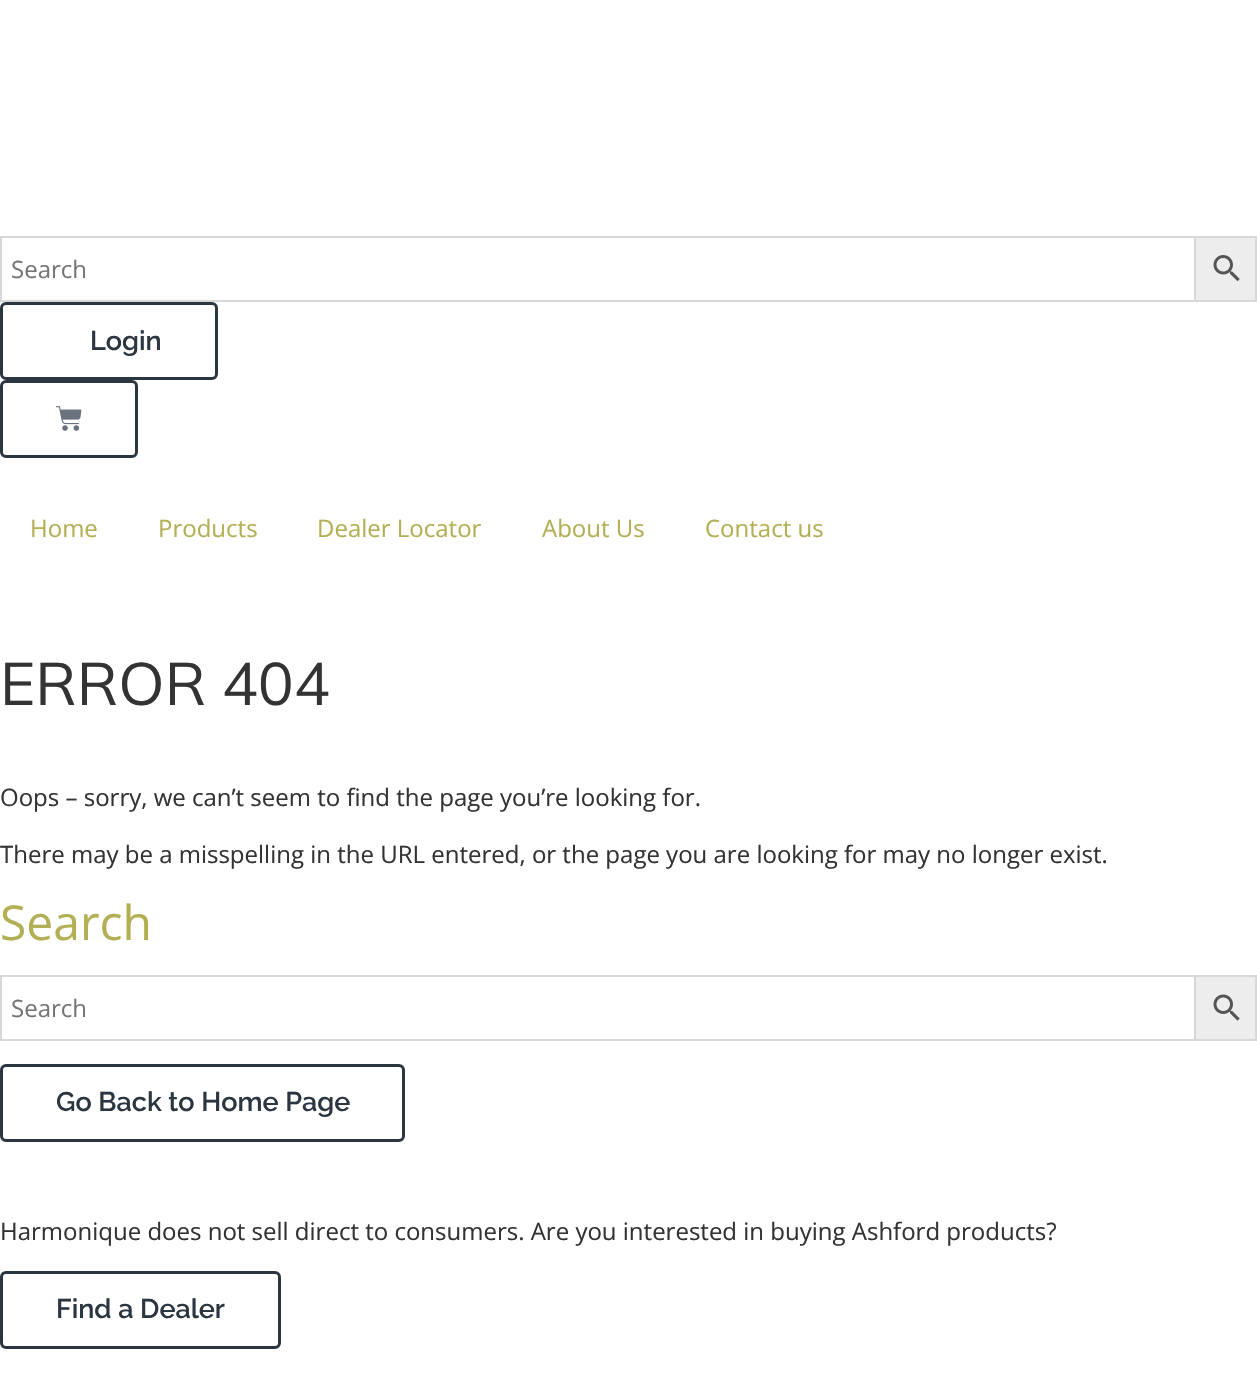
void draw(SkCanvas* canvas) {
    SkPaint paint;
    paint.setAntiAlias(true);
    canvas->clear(0xFFFFFFFF);
    paint.setColor(0xFFEDEDED);
    canvas->drawRect(SkRect::MakeXYWH(1195, 237, 61, 64), paint);
    paint.setStyle(SkPaint::kStroke_Style);
    paint.setStrokeWidth(2);
    paint.setColor(0xFFD8D8D8);
    canvas->drawRect(SkRect::MakeXYWH(1195, 237, 61, 64), paint);
    canvas->drawRect(SkRect::MakeXYWH(1, 237, 1194, 64), paint);
    SkFont font1(fontMgr->matchFamilyStyle("Open Sans", SkFontStyle::Normal()), 24);
    font1.setSubpixel(true);
    paint.setStyle(SkPaint::kFill_Style);
    paint.setColor(0xFF757575);
    canvas->drawString("Search", 11, 278, font1, paint);
    canvas->drawImageRect(SkImages::DeferredFromEncodedData(SkData::MakeFromFileName("img1.png")), SkRect::MakeXYWH(1213, 255, 27, 27), SkSamplingOptions());
    paint.setStyle(SkPaint::kStroke_Style);
    paint.setStrokeWidth(3);
    paint.setColor(0xFF2C3640);
    canvas->drawRoundRect(SkRect::MakeXYWH(1.5f, 303.5f, 215, 75), 4.5f, 4.5f, paint);
    SkFont font2(fontMgr->matchFamilyStyle("Raleway", SkFontStyle(600, SkFontStyle::kNormal_Width, SkFontStyle::kUpright_Slant)), 27);
    font2.setSubpixel(true);
    paint.setStyle(SkPaint::kFill_Style);
    canvas->drawString("Login", 90, 350, font2, paint);
    paint.setStyle(SkPaint::kStroke_Style);
    canvas->drawRoundRect(SkRect::MakeXYWH(1.5f, 381.5f, 135, 75), 4.5f, 4.5f, paint);
    canvas->drawImageRect(SkImages::DeferredFromEncodedData(SkData::MakeFromFileName("img2.png")), SkRect::MakeXYWH(56, 406, 26, 25), SkSamplingOptions());
    paint.setStyle(SkPaint::kFill_Style);
    paint.setColor(0xFFB3AF54);
    canvas->drawString("Home", 30, 537, font1, paint);
    canvas->drawString("Products", 158, 537, font1, paint);
    canvas->drawString("Dealer Locator", 317, 537, font1, paint);
    canvas->drawString("About Us", 542, 537, font1, paint);
    canvas->drawString("Contact us", 705, 537, font1, paint);
    SkFont font3(fontMgr->matchFamilyStyle("Mulish", SkFontStyle::Normal()), 60);
    font3.setSubpixel(true);
    paint.setColor(0xFF333333);
    canvas->drawString("ERROR 404", 0, 705, font3, paint);
    canvas->drawString("Oops – sorry, we can’t seem to find the page you’re looking for.", 0, 806, font1, paint);
    canvas->drawString("There may be a misspelling in the URL entered, or the page you are looking for may no longer exist.", 0, 863, font1, paint);
    SkFont font4(fontMgr->matchFamilyStyle("Open Sans", SkFontStyle::Normal()), 48);
    font4.setSubpixel(true);
    paint.setColor(0xFFB3AF54);
    canvas->drawString("Search", 0, 940, font4, paint);
    paint.setColor(0xFFEDEDED);
    canvas->drawRect(SkRect::MakeXYWH(1195, 976, 61, 64), paint);
    paint.setStyle(SkPaint::kStroke_Style);
    paint.setStrokeWidth(2);
    paint.setColor(0xFFD8D8D8);
    canvas->drawRect(SkRect::MakeXYWH(1195, 976, 61, 64), paint);
    canvas->drawRect(SkRect::MakeXYWH(1, 976, 1194, 64), paint);
    paint.setStyle(SkPaint::kFill_Style);
    paint.setColor(0xFF757575);
    canvas->drawString("Search", 11, 1017, font1, paint);
    canvas->drawImageRect(SkImages::DeferredFromEncodedData(SkData::MakeFromFileName("img3.png")), SkRect::MakeXYWH(1213, 994, 27, 27), SkSamplingOptions());
    paint.setStyle(SkPaint::kStroke_Style);
    paint.setStrokeWidth(3);
    paint.setColor(0xFF2C3640);
    canvas->drawRoundRect(SkRect::MakeXYWH(1.5f, 1065.5f, 402, 75), 4.5f, 4.5f, paint);
    paint.setStyle(SkPaint::kFill_Style);
    canvas->drawString("Go Back to Home Page", 56, 1111, font2, paint);
    paint.setColor(0xFF333333);
    canvas->drawString("Harmonique does not sell direct to consumers. Are you interested in buying Ashford products?", 0, 1240, font1, paint);
    paint.setStyle(SkPaint::kStroke_Style);
    paint.setColor(0xFF2C3640);
    canvas->drawRoundRect(SkRect::MakeXYWH(1.5f, 1272.5f, 278, 75), 4.5f, 4.5f, paint);
    paint.setStyle(SkPaint::kFill_Style);
    canvas->drawString("Find a Dealer", 56, 1318, font2, paint);
}
